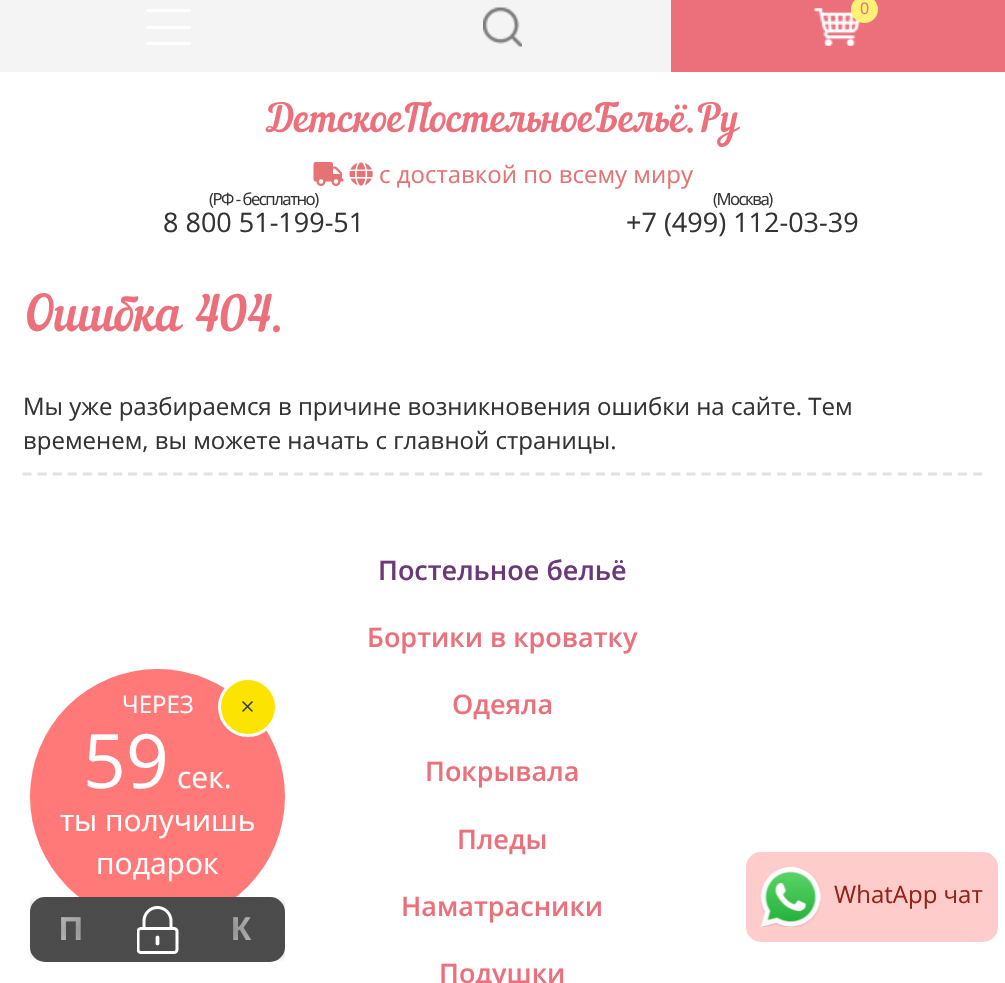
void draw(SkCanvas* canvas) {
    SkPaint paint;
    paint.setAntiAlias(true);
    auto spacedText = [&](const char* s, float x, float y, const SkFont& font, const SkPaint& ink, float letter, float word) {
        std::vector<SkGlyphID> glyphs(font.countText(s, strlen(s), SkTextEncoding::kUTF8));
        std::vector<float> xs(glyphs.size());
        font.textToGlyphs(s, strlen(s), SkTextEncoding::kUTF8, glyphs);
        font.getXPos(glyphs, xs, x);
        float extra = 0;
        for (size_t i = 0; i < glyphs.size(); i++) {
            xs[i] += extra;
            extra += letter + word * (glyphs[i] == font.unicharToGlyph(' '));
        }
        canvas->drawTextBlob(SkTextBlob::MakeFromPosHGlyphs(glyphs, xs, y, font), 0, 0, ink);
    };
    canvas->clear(0xFFFFFFFF);
    paint.setColor(0xFFF5F4F4);
    canvas->drawRect(SkRect::MakeXYWH(0, 0, 671, 72), paint);
    paint.setColor(0xFFFFFFFF);
    canvas->drawRoundRect(SkRect::MakeXYWH(146, 9, 45, 3), 1.5f, 1.5f, paint);
    canvas->drawRoundRect(SkRect::MakeXYWH(146, 26, 45, 3), 1.5f, 1.5f, paint);
    canvas->drawRoundRect(SkRect::MakeXYWH(146, 42, 45, 3), 1.5f, 1.5f, paint);
    paint.setColor(0xFFEC707B);
    canvas->drawRect(SkRect::MakeXYWH(671, 0, 334, 72), paint);
    canvas->drawImageRect(SkImages::DeferredFromEncodedData(SkData::MakeFromFileName("img1.png")), SkRect::MakeXYWH(814, 8, 46, 38), SkSamplingOptions());
    paint.setColor(0xFFFFF176);
    canvas->drawCircle(864.5f, 9.5f, 13.5f, paint);
    SkFont font1(fontMgr->matchFamilyStyle("Open Sans", SkFontStyle::Normal()), 16);
    font1.setSubpixel(true);
    paint.setColor(0xFFE57373);
    canvas->drawString("0", 860, 14, font1, paint);
    canvas->drawImageRect(SkImages::DeferredFromEncodedData(SkData::MakeFromFileName("img2.png")), SkRect::MakeXYWH(483, 7, 39, 40), SkSamplingOptions());
    SkFont font2(fontMgr->matchFamilyStyle("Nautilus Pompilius", SkFontStyle::Normal()), 39);
    font2.setSubpixel(true);
    paint.setColor(0xFFEC707B);
    canvas->drawString("ДетскоеПостельноеБельё.Ру", 267, 132, font2, paint);
    canvas->drawImageRect(SkImages::DeferredFromEncodedData(SkData::MakeFromFileName("img3.png")), SkRect::MakeXYWH(313, 162, 31, 24), SkSamplingOptions());
    canvas->drawImageRect(SkImages::DeferredFromEncodedData(SkData::MakeFromFileName("img4.png")), SkRect::MakeXYWH(349, 162, 24, 24), SkSamplingOptions());
    SkFont font3(fontMgr->matchFamilyStyle("Open Sans", SkFontStyle::Normal()), 24);
    font3.setSubpixel(true);
    paint.setColor(0xFFE57373);
    canvas->drawString("с доставкой по всему миру", 379, 183, font3, paint);
    SkFont font4(fontMgr->matchFamilyStyle("Open Sans", SkFontStyle::Normal()), 16.75f);
    font4.setSubpixel(true);
    paint.setColor(0xFF333333);
    spacedText("(РФ - бесплатно)", 209, 205, font4, paint, -1.5f, 0);
    SkFont font5(fontMgr->matchFamilyStyle("Open Sans", SkFontStyle::Normal()), 27);
    font5.setSubpixel(true);
    canvas->drawString("8 800 51-199-51", 163, 232, font5, paint);
    spacedText("(Москва)", 713, 205, font4, paint, -1.5f, 0);
    canvas->drawString("+7 (499) 112-03-39", 626, 232, font5, paint);
    SkFont font6(fontMgr->matchFamilyStyle("Nautilus Pompilius", SkFontStyle::Normal()), 49.5f);
    font6.setSubpixel(true);
    paint.setColor(0xFFEC707B);
    canvas->drawString("Ошибка 404.", 23, 331, font6, paint);
    paint.setColor(0xFF333333);
    canvas->drawString("Мы уже разбираемся в причине возникновения ошибки на сайте. Тем", 23, 415, font3, paint);
    canvas->drawString("временем, вы можете начать с главной страницы.", 23, 449, font3, paint);
    paint.setStyle(SkPaint::kStroke_Style);
    paint.setStrokeWidth(3);
    paint.setColor(0xFFE1E1E1);
    paint.setPathEffect(SkDashPathEffect::Make({{9, 6.09f}}, 0));
    canvas->drawPath(SkPathBuilder().moveTo(22.5f, 474).lineTo(982.5f, 474).detach(), paint);
    paint.setPathEffect(nullptr);
    SkFont font7(fontMgr->matchFamilyStyle("Open Sans", SkFontStyle(600, SkFontStyle::kNormal_Width, SkFontStyle::kUpright_Slant)), 27);
    font7.setSubpixel(true);
    paint.setStyle(SkPaint::kFill_Style);
    paint.setColor(0xFF6B387A);
    canvas->drawString("Постельное бельё", 378, 580, font7, paint);
    paint.setColor(0xFFEC707B);
    canvas->drawString("Бортики в кроватку", 367, 647, font7, paint);
    canvas->drawString("Одеяла", 452, 714, font7, paint);
    canvas->drawString("Покрывала", 425, 781, font7, paint);
    canvas->drawString("Пледы", 457, 849, font7, paint);
    canvas->drawString("Наматрасники", 401, 916, font7, paint);
    canvas->drawString("Подушки", 439, 983, font7, paint);
    paint.setColor(0xFFFF7978);
    canvas->drawCircle(157.5f, 796.5f, 127.5f, paint);
    paint.setColor(0xFFFCE300);
    canvas->drawCircle(248, 707, 28.5f, paint);
    paint.setStyle(SkPaint::kStroke_Style);
    paint.setColor(0xFFFFFFFF);
    canvas->drawCircle(248, 707, 28.5f, paint);
    canvas->drawImageRect(SkImages::DeferredFromEncodedData(SkData::MakeFromFileName("img5.png")), SkRect::MakeXYWH(242, 701, 11, 11), SkSamplingOptions());
    paint.setStyle(SkPaint::kFill_Style);
    canvas->drawString("ЧЕРЕЗ", 122, 713, font3, paint);
    SkFont font8(fontMgr->matchFamilyStyle("Open Sans", SkFontStyle::Normal()), 75);
    font8.setSubpixel(true);
    canvas->drawString("59", 83, 788, font8, paint);
    SkFont font9(fontMgr->matchFamilyStyle("Open Sans", SkFontStyle::Normal()), 30);
    font9.setSubpixel(true);
    canvas->drawString("сек.", 177, 788, font9, paint);
    canvas->drawString("ты получишь", 60, 831, font9, paint);
    canvas->drawString("подарок", 96, 874, font9, paint);
    paint.setColor(0xFF4B4B4B);
    canvas->drawRoundRect(SkRect::MakeXYWH(30, 897, 255, 65), 15, 15, paint);
    SkFont font10(fontMgr->matchFamilyStyle("Liberation Sans", SkFontStyle::Bold()), 33);
    font10.setSubpixel(true);
    paint.setColor(0xFFFFFFFF);
    spacedText("П", 59, 940, font10, paint, 4, 0);
    spacedText("К", 231, 940, font10, paint, 4, 0);
    {
        const SkColor colors[] = {0xFF4B4B4B, 0x004B4B4B};
        const float stops[] = {0, 1};
        SkMatrix m = SkMatrix::Translate(158, 929).preScale(180, 46);
        paint.setShader(SkGradientShader::MakeRadial({0, 0}, 1, colors, stops, 2, SkTileMode::kClamp, 0, &m));
        paint.setAlpha(255);
    }
    canvas->drawRect(SkRect::MakeXYWH(30, 897, 255, 65), paint);
    canvas->drawImageRect(SkImages::DeferredFromEncodedData(SkData::MakeFromFileName("img6.png")), SkRect::MakeXYWH(137, 906, 42, 48), SkSamplingOptions());
    paint.setShader(nullptr);
    paint.setColor(0xFFFFCCCC);
    canvas->drawRoundRect(SkRect::MakeXYWH(746, 852, 252, 90), 15, 15, paint);
    canvas->drawImageRect(SkImages::DeferredFromEncodedData(SkData::MakeFromFileName("img7.png")), SkRect::MakeXYWH(760, 867, 61, 60), SkSamplingOptions());
    paint.setColor(0xFF962215);
    canvas->drawString("WhatApp чат", 834, 903, font3, paint);
}
